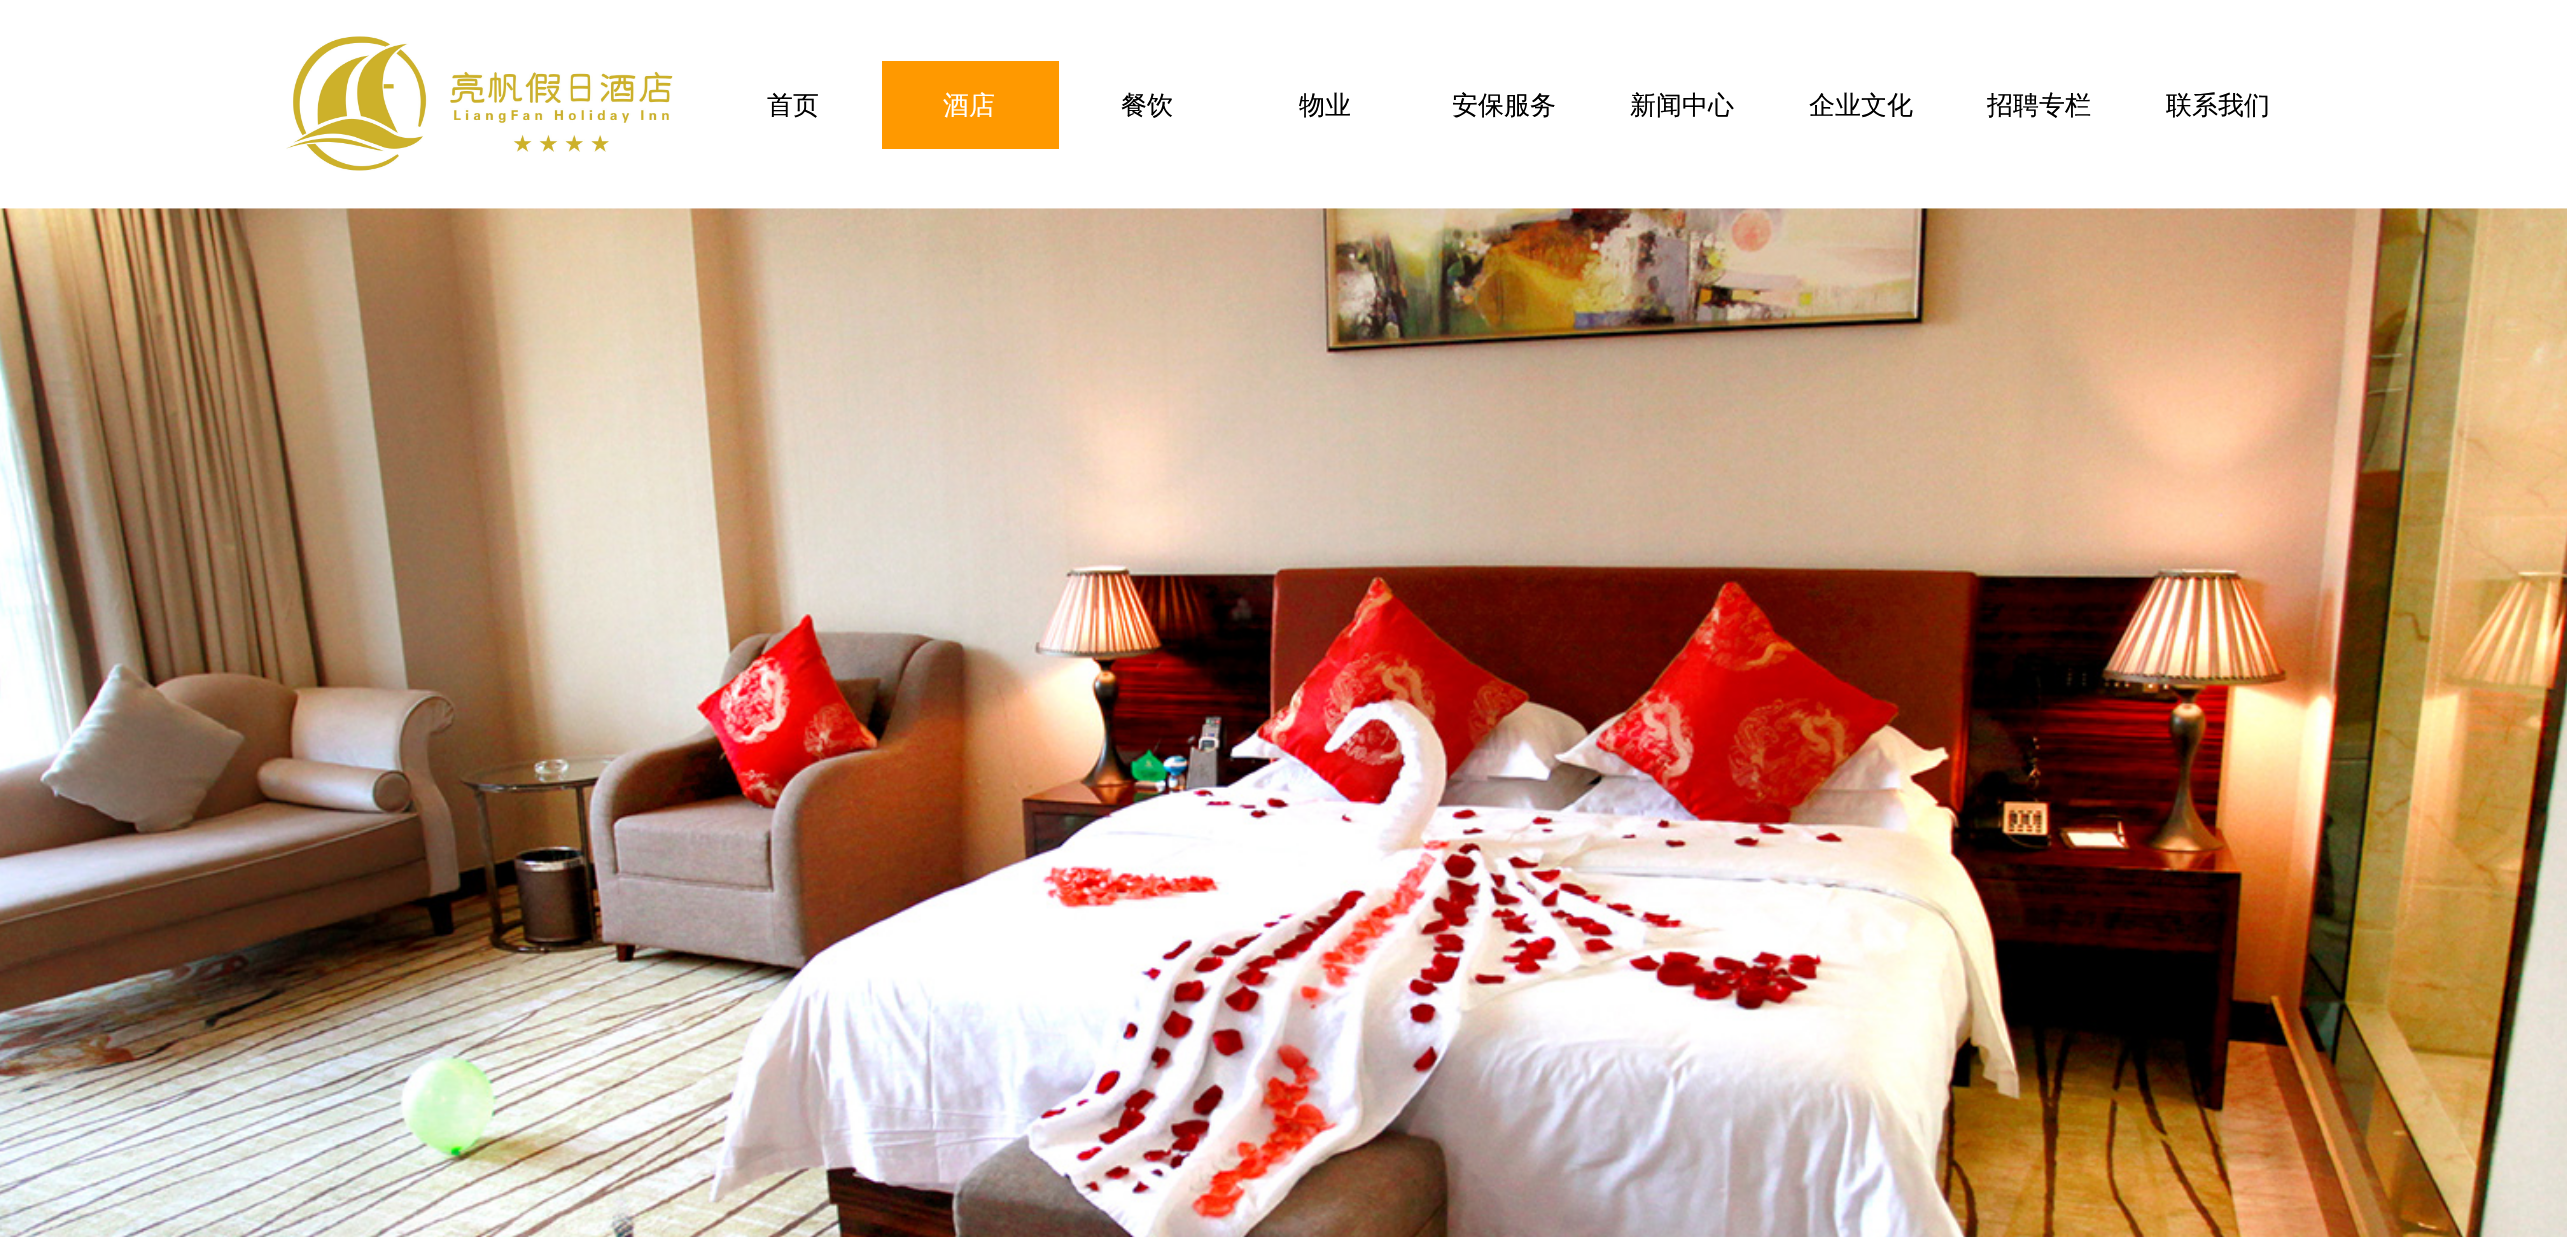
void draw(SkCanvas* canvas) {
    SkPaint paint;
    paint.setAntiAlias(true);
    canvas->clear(0xFFFFFFFF);
    canvas->drawImageRect(SkImages::DeferredFromEncodedData(SkData::MakeFromFileName("img1.png")), SkRect::MakeXYWH(286, 36, 387, 135), SkSamplingOptions());
    SkFont font1(fontMgr->matchFamilyStyle("WenQuanYi Zen Hei", SkFontStyle(500, SkFontStyle::kNormal_Width, SkFontStyle::kUpright_Slant)), 26);
    font1.setSubpixel(true);
    paint.setColor(0xFF000000);
    canvas->drawString("首页", 767, 114, font1, paint);
    paint.setColor(0xFFFF9900);
    canvas->drawRect(SkRect::MakeXYWH(882, 61, 177, 88), paint);
    paint.setColor(0xFFFFFFFF);
    canvas->drawString("酒店", 943, 114, font1, paint);
    paint.setColor(0xFF000000);
    canvas->drawString("餐饮", 1121, 114, font1, paint);
    canvas->drawString("物业", 1299, 114, font1, paint);
    canvas->drawString("安保服务", 1452, 114, font1, paint);
    canvas->drawString("新闻中心", 1630, 114, font1, paint);
    canvas->drawString("企业文化", 1809, 114, font1, paint);
    canvas->drawString("招聘专栏", 1987, 114, font1, paint);
    canvas->drawString("联系我们", 2166, 114, font1, paint);
    canvas->drawImageRect(SkImages::DeferredFromEncodedData(SkData::MakeFromFileName("img2.png")), SkRect::MakeXYWH(0, 208, 2567, 1029), SkSamplingOptions());
}
